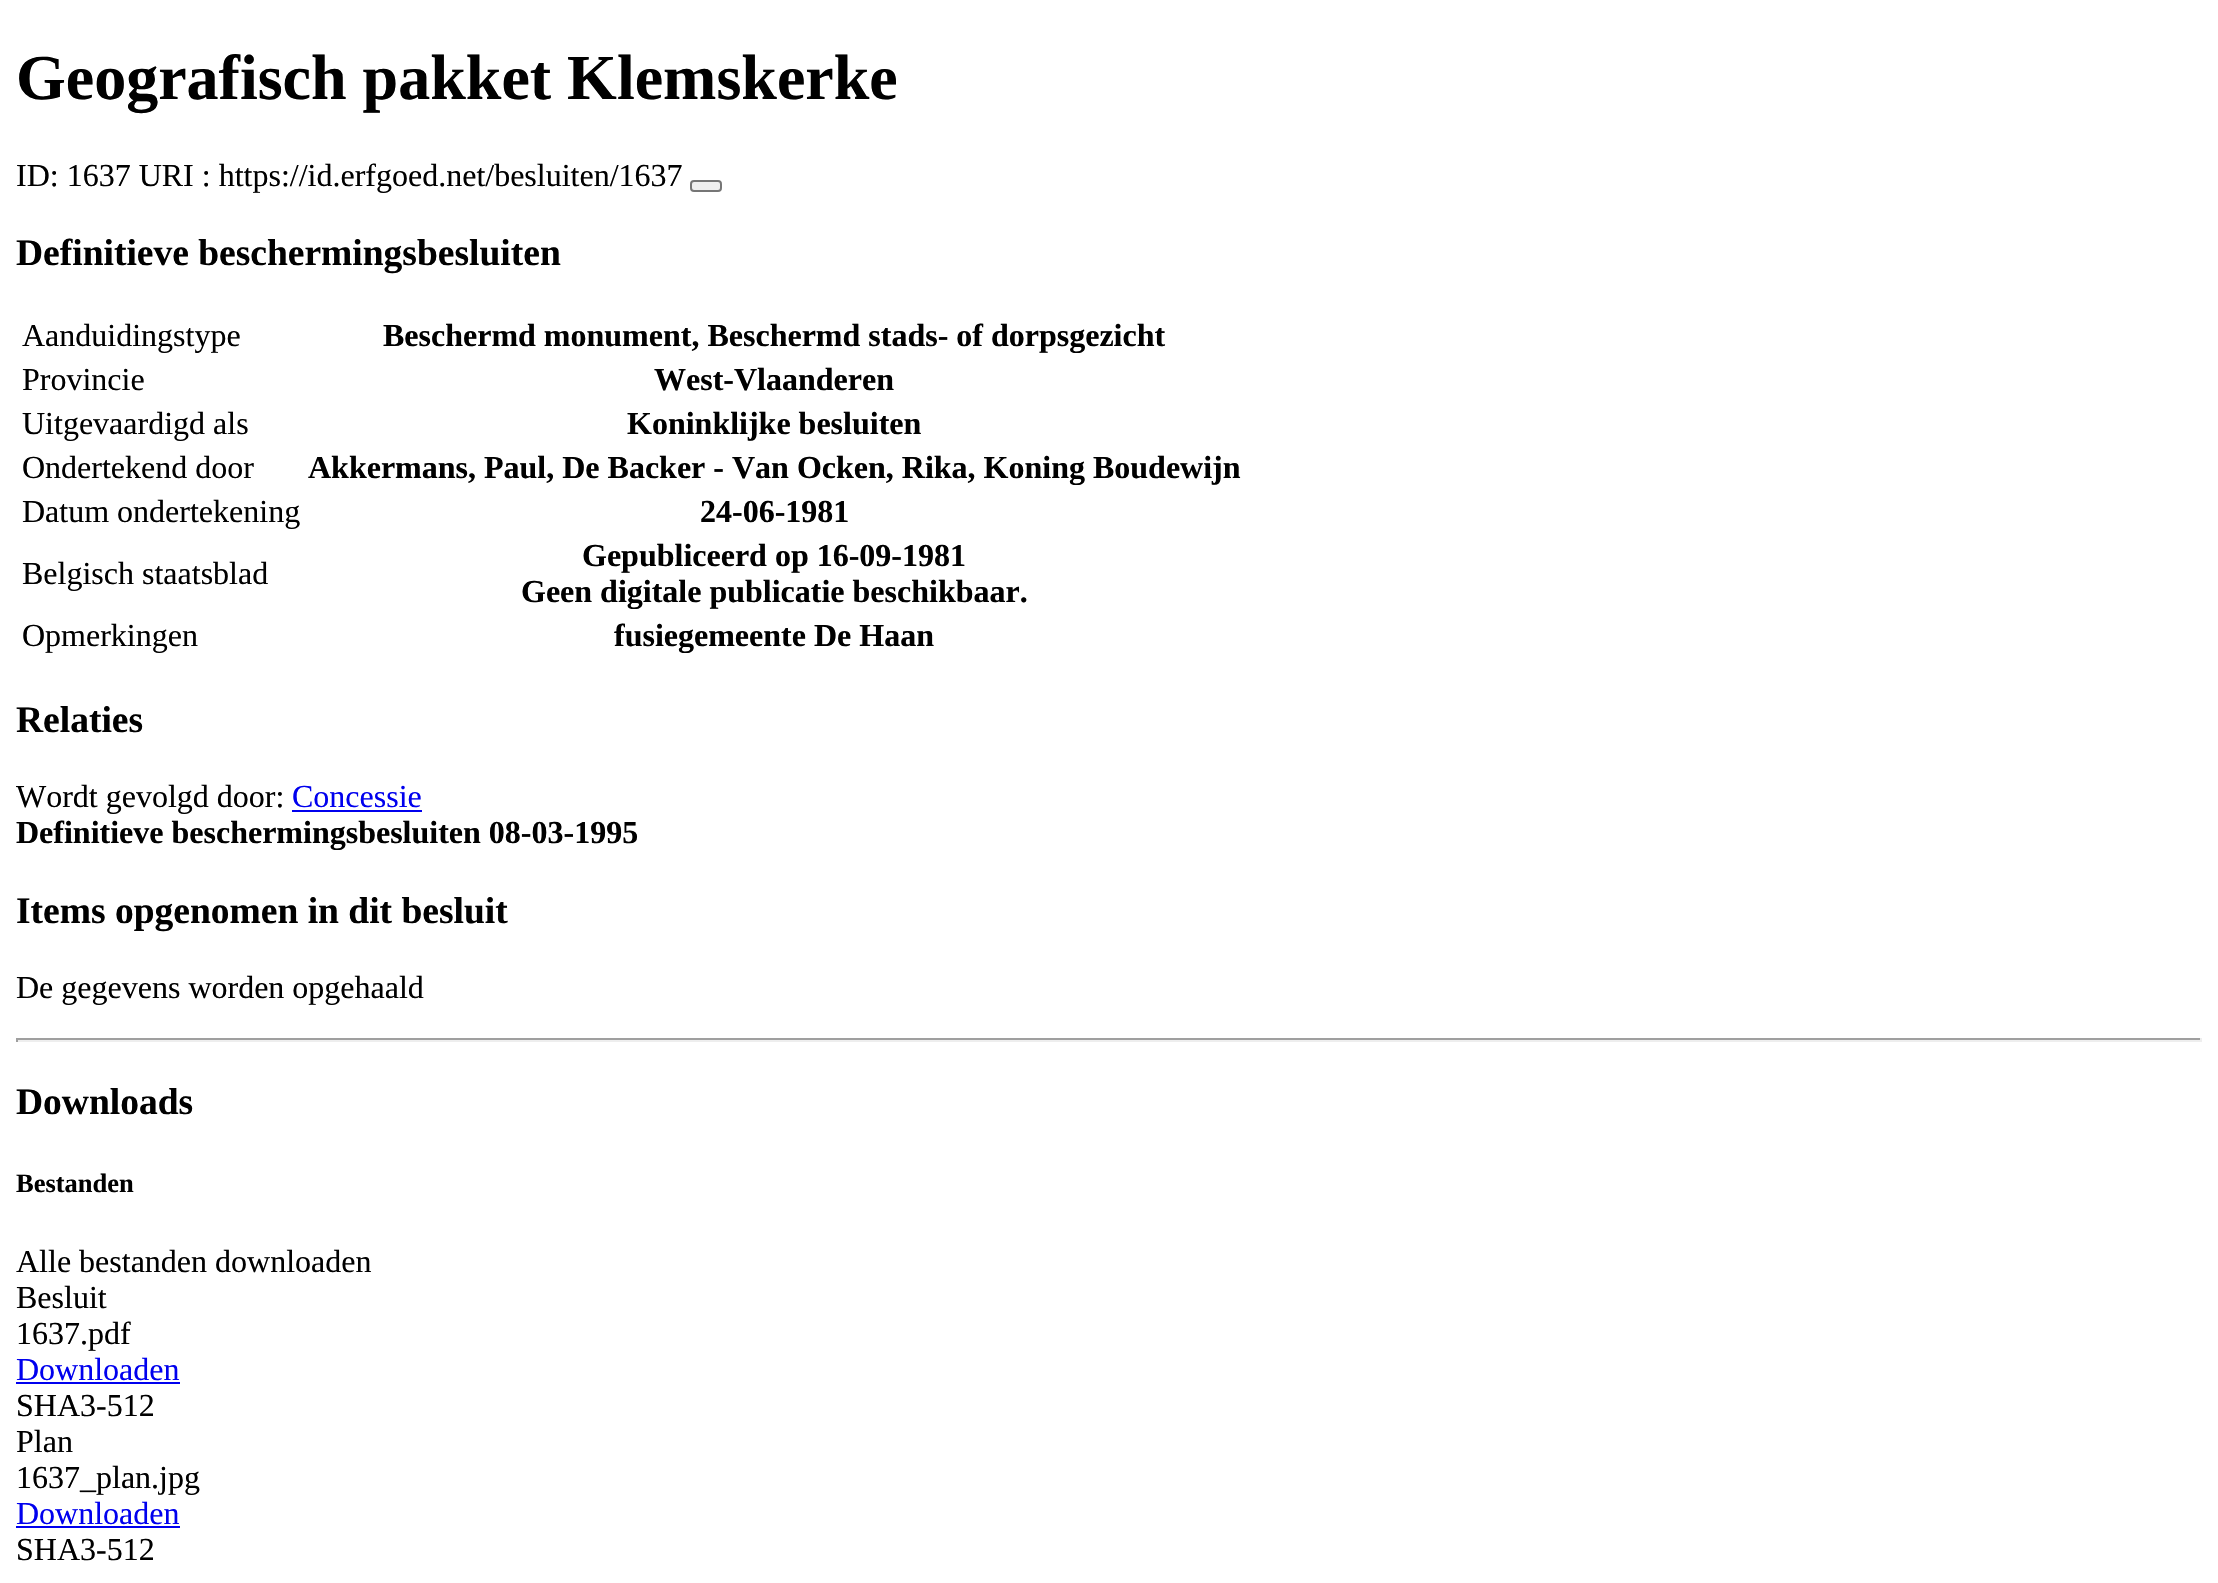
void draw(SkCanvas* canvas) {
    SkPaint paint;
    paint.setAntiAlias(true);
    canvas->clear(0xFFFFFFFF);
    SkFont font1(fontMgr->matchFamilyStyle("Liberation Serif", SkFontStyle::Bold()), 64);
    font1.setSubpixel(true);
    paint.setColor(0xFF000000);
    canvas->drawString("Geografisch pakket Klemskerke", 16, 99, font1, paint);
    SkFont font2(fontMgr->matchFamilyStyle("Liberation Serif", SkFontStyle::Normal()), 32);
    font2.setSubpixel(true);
    canvas->drawString("ID: 1637 URI : https://id.erfgoed.net/besluiten/1637", 16, 186, font2, paint);
    paint.setColor(0xFFEFEFEF);
    canvas->drawRoundRect(SkRect::MakeXYWH(691, 181, 30, 10), 3, 3, paint);
    paint.setStyle(SkPaint::kStroke_Style);
    paint.setStrokeWidth(2);
    paint.setColor(0xFF767676);
    canvas->drawRoundRect(SkRect::MakeXYWH(691, 181, 30, 10), 3, 3, paint);
    SkFont font3(fontMgr->matchFamilyStyle("Liberation Serif", SkFontStyle::Bold()), 37.5f);
    font3.setSubpixel(true);
    paint.setStyle(SkPaint::kFill_Style);
    paint.setColor(0xFF000000);
    canvas->drawString("Definitieve beschermingsbesluiten", 16, 265, font3, paint);
    canvas->drawString("Aanduidingstype", 22, 346, font2, paint);
    SkFont font4(fontMgr->matchFamilyStyle("Liberation Serif", SkFontStyle::Bold()), 32);
    font4.setSubpixel(true);
    canvas->drawString("Beschermd monument, Beschermd stads- of dorpsgezicht", 383, 346, font4, paint);
    canvas->drawString("Provincie", 22, 390, font2, paint);
    canvas->drawString("West-Vlaanderen", 654, 390, font4, paint);
    canvas->drawString("Uitgevaardigd als", 22, 434, font2, paint);
    canvas->drawString("Koninklijke besluiten", 627, 434, font4, paint);
    canvas->drawString("Ondertekend door", 22, 478, font2, paint);
    canvas->drawString("Akkermans, Paul, De Backer - Van Ocken, Rika, Koning Boudewijn", 308, 478, font4, paint);
    canvas->drawString("Datum ondertekening", 22, 522, font2, paint);
    canvas->drawString("24-06-1981", 700, 522, font4, paint);
    canvas->drawString("Belgisch staatsblad", 22, 584, font2, paint);
    canvas->drawString("Gepubliceerd op 16-09-1981", 582, 566, font4, paint);
    canvas->drawString("Geen digitale publicatie beschikbaar.", 521, 602, font4, paint);
    canvas->drawString("Opmerkingen", 22, 646, font2, paint);
    canvas->drawString("fusiegemeente De Haan", 614, 646, font4, paint);
    canvas->drawString("Relaties", 16, 732, font3, paint);
    canvas->drawString("Wordt gevolgd door:", 16, 807, font2, paint);
    paint.setColor(0xFF0000EE);
    canvas->drawString("Concessie", 292, 807, font2, paint);
    canvas->drawRect(SkRect::MakeXYWH(292, 810, 130, 2), paint);
    paint.setColor(0xFF000000);
    canvas->drawString("Definitieve beschermingsbesluiten 08-03-1995", 16, 843, font4, paint);
    canvas->drawString("Items opgenomen in dit besluit", 16, 923, font3, paint);
    canvas->drawString("De gegevens worden opgehaald", 16, 998, font2, paint);
    paint.setColor(0xFF9F9F9F);
    canvas->drawRect(SkRect::MakeXYWH(16, 1038, 2186, 2), paint);
    paint.setColor(0xFFEEEEEE);
    canvas->drawRect(SkRect::MakeXYWH(2200, 1038, 2, 4), paint);
    canvas->drawRect(SkRect::MakeXYWH(16, 1040, 2186, 2), paint);
    paint.setColor(0xFF9F9F9F);
    canvas->drawRect(SkRect::MakeXYWH(16, 1038, 2, 4), paint);
    paint.setColor(0xFF000000);
    canvas->drawString("Downloads", 16, 1114, font3, paint);
    SkFont font5(fontMgr->matchFamilyStyle("Liberation Serif", SkFontStyle::Bold()), 26.5f);
    font5.setSubpixel(true);
    canvas->drawString("Bestanden", 16, 1192, font5, paint);
    canvas->drawString("Alle bestanden downloaden", 16, 1272, font2, paint);
    canvas->drawString("Besluit", 16, 1308, font2, paint);
    canvas->drawString("1637.pdf", 16, 1344, font2, paint);
    paint.setColor(0xFF0000EE);
    canvas->drawString("Downloaden", 16, 1380, font2, paint);
    canvas->drawRect(SkRect::MakeXYWH(16, 1382, 164, 2), paint);
    paint.setColor(0xFF000000);
    canvas->drawString("SHA3-512", 16, 1416, font2, paint);
    canvas->drawString("Plan", 16, 1452, font2, paint);
    canvas->drawString("1637_plan.jpg", 16, 1488, font2, paint);
    paint.setColor(0xFF0000EE);
    canvas->drawString("Downloaden", 16, 1524, font2, paint);
    canvas->drawRect(SkRect::MakeXYWH(16, 1526, 164, 2), paint);
    paint.setColor(0xFF000000);
    canvas->drawString("SHA3-512", 16, 1560, font2, paint);
}
